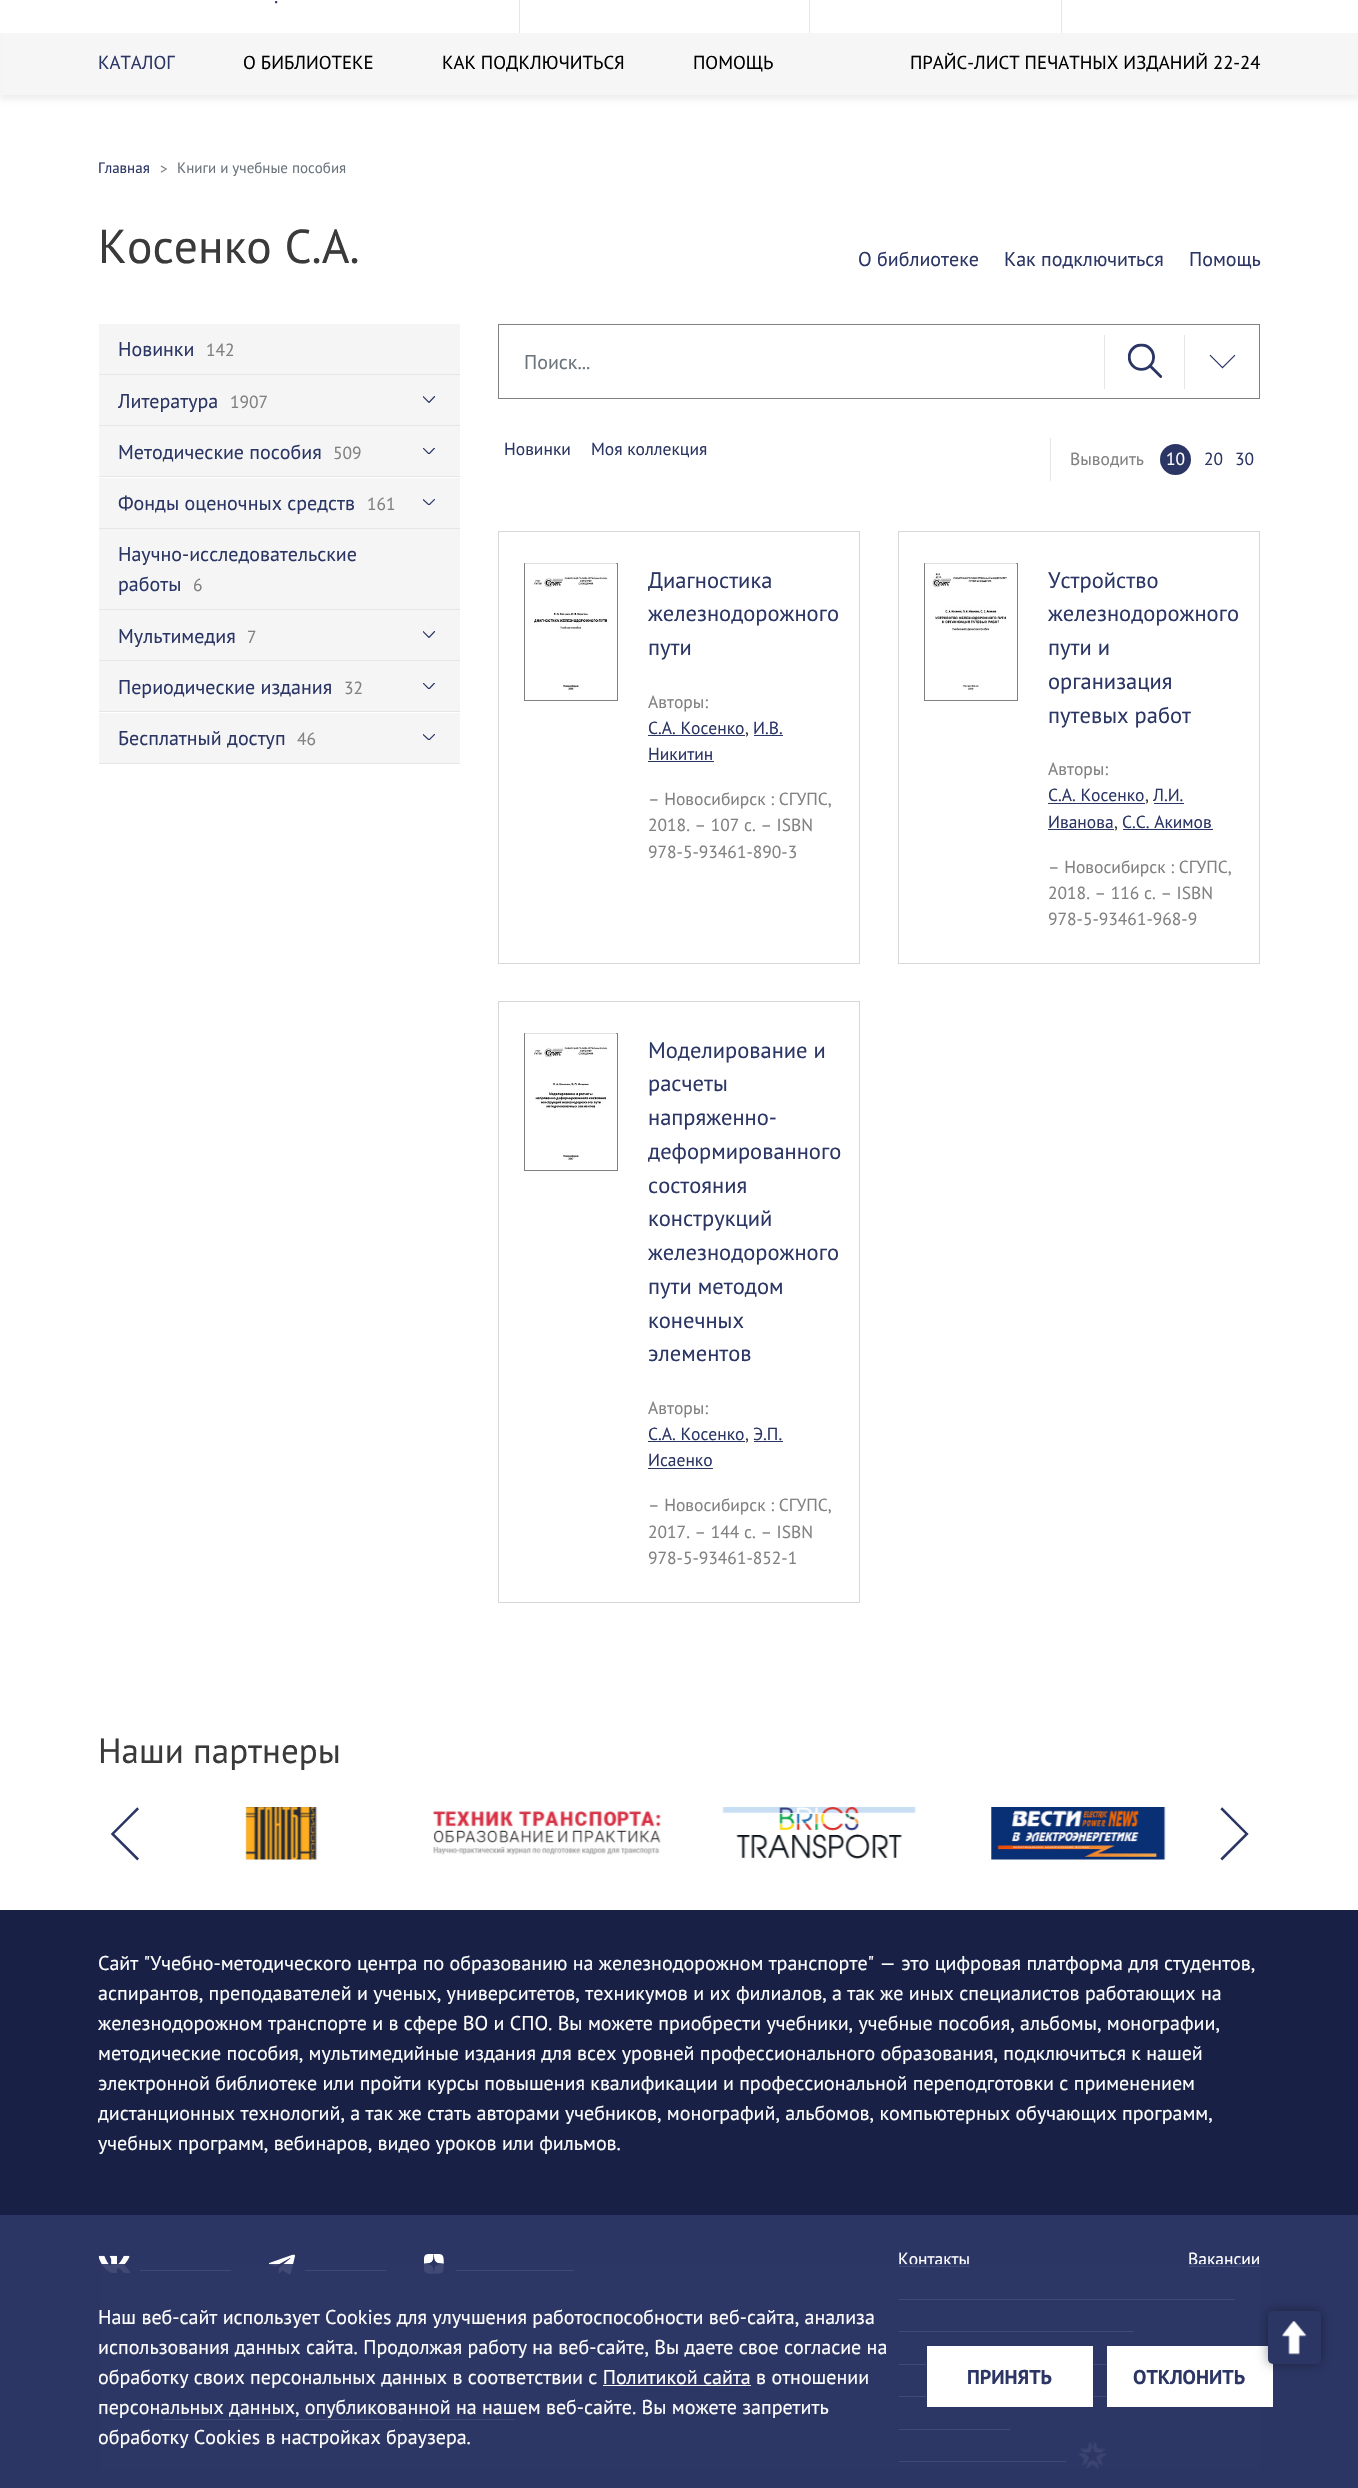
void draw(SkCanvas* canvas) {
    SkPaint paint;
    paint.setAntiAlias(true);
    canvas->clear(0xFFFFFFFF);
    paint.setColor(0x0F000000);
    paint.setMaskFilter(SkMaskFilter::MakeBlur(kNormal_SkBlurStyle, 2.5f));
    canvas->drawRect(SkRect::MakeXYWH(0, -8, 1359, 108), paint);
    paint.setMaskFilter(nullptr);
    paint.setColor(0xFFFFFFFF);
    canvas->drawRect(SkRect::MakeXYWH(0, 0, 1358, 33), paint);
    SkFont font1(fontMgr->matchFamilyStyle("PT Sans", SkFontStyle::Normal()), 20);
    font1.setSubpixel(true);
    paint.setColor(0xFF2C3665);
    canvas->drawString(".", 274, 3, font1, paint);
    paint.setColor(0xFFE6E6E6);
    canvas->drawRect(SkRect::MakeXYWH(519, 0, 1, 33), paint);
    canvas->drawRect(SkRect::MakeXYWH(809, 0, 1, 33), paint);
    canvas->drawRect(SkRect::MakeXYWH(1061, 0, 1, 33), paint);
    paint.setColor(0xFFF6F6F6);
    canvas->drawRect(SkRect::MakeXYWH(2, 33, 1355, 62), paint);
    SkFont font2(fontMgr->matchFamilyStyle("PT Sans", SkFontStyle::Normal()), 18.75f);
    font2.setSubpixel(true);
    paint.setColor(0xFF2C3665);
    canvas->drawString("КАТАЛОГ", 98, 69, font2, paint);
    paint.setColor(0xFF000000);
    canvas->drawString("О БИБЛИОТЕКЕ", 243, 69, font2, paint);
    canvas->drawString("КАК ПОДКЛЮЧИТЬСЯ", 442, 69, font2, paint);
    canvas->drawString("ПОМОЩЬ", 693, 69, font2, paint);
    canvas->drawString("ПРАЙС-ЛИСТ ПЕЧАТНЫХ ИЗДАНИЙ 22-24", 910, 69, font2, paint);
    SkFont font3(fontMgr->matchFamilyStyle("PT Sans", SkFontStyle::Normal()), 15);
    font3.setSubpixel(true);
    paint.setColor(0xFF2C3665);
    canvas->drawString("Главная", 98, 173, font3, paint);
    paint.setColor(0xFF818181);
    canvas->drawString(">", 160, 174, font3, paint);
    paint.setColor(0xFF6C757D);
    canvas->drawString("Книги и учебные пособия", 177, 173, font3, paint);
    SkFont font4(fontMgr->matchFamilyStyle("PT Sans", SkFontStyle::Normal()), 47.5f);
    font4.setSubpixel(true);
    paint.setColor(0xFF3A3A3A);
    canvas->drawString("Косенко С.А.", 98, 263, font4, paint);
    paint.setColor(0xFF2C3665);
    canvas->drawString("О библиотеке", 858, 266, font1, paint);
    canvas->drawString("Как подключиться", 1004, 266, font1, paint);
    canvas->drawString("Помощь", 1189, 266, font1, paint);
    paint.setColor(0xFFE6E6E6);
    canvas->drawRect(SkRect::MakeXYWH(99, 374, 361, 1), paint);
    paint.setColor(0xFFF5F5F5);
    canvas->drawRect(SkRect::MakeXYWH(99, 324, 361, 50), paint);
    paint.setColor(0xFF2C3665);
    canvas->drawString("Новинки", 118, 356, font1, paint);
    SkFont font5(fontMgr->matchFamilyStyle("PT Sans", SkFontStyle::Normal()), 17.5f);
    font5.setSubpixel(true);
    paint.setColor(0xFF818181);
    canvas->drawString("142", 206, 356, font5, paint);
    paint.setColor(0xFFE6E6E6);
    canvas->drawRect(SkRect::MakeXYWH(99, 425, 361, 1), paint);
    paint.setColor(0xFFF5F5F5);
    canvas->drawRect(SkRect::MakeXYWH(99, 375, 361, 50), paint);
    paint.setColor(0xFF2C3665);
    canvas->drawString("Литература", 118, 408, font1, paint);
    paint.setColor(0xFF818181);
    canvas->drawString("1907", 230, 408, font5, paint);
    canvas->save();
    canvas->clipRect(SkRect::MakeXYWH(423, 396, 12, 7));
    paint.setStyle(SkPaint::kStroke_Style);
    paint.setStrokeWidth(1.2f);
    paint.setColor(0xFF2C3665);
    canvas->drawPath(SkPathBuilder().moveTo(422.5f, 396).lineTo(429, 402.5f).lineTo(435, 396).detach(), paint);
    canvas->restore();
    paint.setStyle(SkPaint::kFill_Style);
    paint.setColor(0xFFE6E6E6);
    canvas->drawRect(SkRect::MakeXYWH(99, 476, 361, 1), paint);
    paint.setColor(0xFFF5F5F5);
    canvas->drawRect(SkRect::MakeXYWH(99, 426, 361, 50), paint);
    paint.setColor(0xFF2C3665);
    canvas->drawString("Методические пособия", 118, 459, font1, paint);
    paint.setColor(0xFF818181);
    canvas->drawString("509", 333, 459, font5, paint);
    canvas->save();
    canvas->clipRect(SkRect::MakeXYWH(423, 448, 12, 6));
    paint.setStyle(SkPaint::kStroke_Style);
    paint.setColor(0xFF2C3665);
    canvas->drawPath(SkPathBuilder().moveTo(422.5f, 447.5f).lineTo(429, 454).lineTo(435, 447.5f).detach(), paint);
    canvas->restore();
    paint.setStyle(SkPaint::kFill_Style);
    paint.setColor(0xFFE6E6E6);
    canvas->drawRect(SkRect::MakeXYWH(99, 528, 361, 1), paint);
    paint.setColor(0xFFF5F5F5);
    canvas->drawRect(SkRect::MakeXYWH(99, 478, 361, 50), paint);
    paint.setColor(0xFF2C3665);
    canvas->drawString("Фонды оценочных средств", 118, 510, font1, paint);
    paint.setColor(0xFF818181);
    canvas->drawString("161", 367, 510, font5, paint);
    canvas->save();
    canvas->clipRect(SkRect::MakeXYWH(423, 499, 12, 6));
    paint.setStyle(SkPaint::kStroke_Style);
    paint.setColor(0xFF2C3665);
    canvas->drawPath(SkPathBuilder().moveTo(422.5f, 499).lineTo(429, 505).lineTo(435, 499).detach(), paint);
    canvas->restore();
    paint.setStyle(SkPaint::kFill_Style);
    paint.setColor(0xFFE6E6E6);
    canvas->drawRect(SkRect::MakeXYWH(99, 609, 361, 1), paint);
    paint.setColor(0xFFF5F5F5);
    canvas->drawRect(SkRect::MakeXYWH(99, 529, 361, 80), paint);
    paint.setColor(0xFF2C3665);
    canvas->drawString("Научно-исследовательские", 118, 561, font1, paint);
    canvas->drawString("работы", 118, 591, font1, paint);
    paint.setColor(0xFF818181);
    canvas->drawString("6", 193, 591, font5, paint);
    paint.setColor(0xFFE6E6E6);
    canvas->drawRect(SkRect::MakeXYWH(99, 660, 361, 1), paint);
    paint.setColor(0xFFF5F5F5);
    canvas->drawRect(SkRect::MakeXYWH(99, 610, 361, 50), paint);
    paint.setColor(0xFF2C3665);
    canvas->drawString("Мультимедия", 118, 643, font1, paint);
    paint.setColor(0xFF818181);
    canvas->drawString("7", 247, 643, font5, paint);
    canvas->save();
    canvas->clipRect(SkRect::MakeXYWH(423, 631, 12, 7));
    paint.setStyle(SkPaint::kStroke_Style);
    paint.setColor(0xFF2C3665);
    canvas->drawPath(SkPathBuilder().moveTo(422.5f, 631).lineTo(429, 637.5f).lineTo(435, 631).detach(), paint);
    canvas->restore();
    paint.setStyle(SkPaint::kFill_Style);
    paint.setColor(0xFFE6E6E6);
    canvas->drawRect(SkRect::MakeXYWH(99, 711, 361, 1), paint);
    paint.setColor(0xFFF5F5F5);
    canvas->drawRect(SkRect::MakeXYWH(99, 661, 361, 50), paint);
    paint.setColor(0xFF2C3665);
    canvas->drawString("Периодические издания", 118, 694, font1, paint);
    paint.setColor(0xFF818181);
    canvas->drawString("32", 344, 694, font5, paint);
    canvas->save();
    canvas->clipRect(SkRect::MakeXYWH(423, 683, 12, 6));
    paint.setStyle(SkPaint::kStroke_Style);
    paint.setColor(0xFF2C3665);
    canvas->drawPath(SkPathBuilder().moveTo(422.5f, 682.5f).lineTo(429, 689).lineTo(435, 682.5f).detach(), paint);
    canvas->restore();
    paint.setStyle(SkPaint::kFill_Style);
    paint.setColor(0xFFE6E6E6);
    canvas->drawRect(SkRect::MakeXYWH(99, 763, 361, 1), paint);
    paint.setColor(0xFFF5F5F5);
    canvas->drawRect(SkRect::MakeXYWH(99, 713, 361, 50), paint);
    paint.setColor(0xFF2C3665);
    canvas->drawString("Бесплатный доступ", 118, 745, font1, paint);
    paint.setColor(0xFF818181);
    canvas->drawString("46", 297, 745, font5, paint);
    canvas->save();
    canvas->clipRect(SkRect::MakeXYWH(423, 734, 12, 6));
    paint.setStyle(SkPaint::kStroke_Style);
    paint.setColor(0xFF2C3665);
    canvas->drawPath(SkPathBuilder().moveTo(422.5f, 734).lineTo(429, 740).lineTo(435, 734).detach(), paint);
    canvas->restore();
    paint.setStrokeWidth(1);
    paint.setColor(0xFF818181);
    canvas->drawRect(SkRect::MakeXYWH(498.5f, 324.5f, 761, 74), paint);
    paint.setStyle(SkPaint::kFill_Style);
    paint.setColor(0xFF6C757D);
    canvas->drawString("Поиск...", 524, 369, font1, paint);
    paint.setColor(0xFFE6E6E6);
    canvas->drawRect(SkRect::MakeXYWH(1104, 335, 1, 54), paint);
    canvas->drawImageRect(SkImages::DeferredFromEncodedData(SkData::MakeFromFileName("img1.png")), SkRect::MakeXYWH(1127, 343, 36, 35), SkSamplingOptions());
    canvas->drawRect(SkRect::MakeXYWH(1184, 335, 1, 54), paint);
    canvas->drawImageRect(SkImages::DeferredFromEncodedData(SkData::MakeFromFileName("img2.png")), SkRect::MakeXYWH(1209, 354, 27, 15), SkSamplingOptions());
    paint.setColor(0xFF2C3665);
    canvas->drawString("Новинки", 504, 455, font5, paint);
    canvas->drawString("Моя коллекция", 591, 455, font5, paint);
    paint.setColor(0xFFE6E6E6);
    canvas->drawRect(SkRect::MakeXYWH(1050, 438, 1, 43), paint);
    paint.setColor(0xFF818181);
    canvas->drawString("Выводить", 1070, 465, font5, paint);
    paint.setColor(0xFF2C3665);
    canvas->drawCircle(1175.5f, 459.5f, 15.5f, paint);
    paint.setColor(0xFFFFFFFF);
    canvas->drawString("10", 1166, 465, font5, paint);
    paint.setColor(0xFF2C3665);
    canvas->drawString("20", 1204, 465, font5, paint);
    canvas->drawString("30", 1235, 465, font5, paint);
    paint.setStyle(SkPaint::kStroke_Style);
    paint.setColor(0xFFD7D7D7);
    canvas->drawRect(SkRect::MakeXYWH(498.5f, 531.5f, 361, 432), paint);
    paint.setColor(0xFF818181);
    canvas->drawRect(SkRect::MakeXYWH(524.5f, 563.5f, 93, 137), paint);
    canvas->drawImageRect(SkImages::DeferredFromEncodedData(SkData::MakeFromFileName("img3.png")), SkRect::MakeXYWH(525, 563, 92, 127), SkSamplingOptions());
    SkFont font6(fontMgr->matchFamilyStyle("PT Sans", SkFontStyle::Normal()), 22.5f);
    font6.setSubpixel(true);
    paint.setStyle(SkPaint::kFill_Style);
    paint.setColor(0xFF2C3665);
    canvas->drawString("Диагностика", 648, 588, font6, paint);
    canvas->drawString("железнодорожного", 648, 621, font6, paint);
    canvas->drawString("пути", 648, 655, font6, paint);
    paint.setColor(0xFF818181);
    canvas->drawString("Авторы:", 648, 708, font5, paint);
    paint.setColor(0xFF2C3665);
    canvas->drawString("С.А. Косенко", 648, 734, font5, paint);
    canvas->drawRect(SkRect::MakeXYWH(648, 735, 97, 1), paint);
    paint.setColor(0xFF414141);
    canvas->drawString(",", 745, 734, font5, paint);
    paint.setColor(0xFF2C3665);
    canvas->drawString("И.В.", 753, 734, font5, paint);
    canvas->drawRect(SkRect::MakeXYWH(754, 735, 29, 1), paint);
    canvas->drawString("Никитин", 648, 760, font5, paint);
    canvas->drawRect(SkRect::MakeXYWH(648, 761, 66, 1), paint);
    paint.setColor(0xFF818181);
    canvas->drawString("– Новосибирск : СГУПС,", 648, 805, font5, paint);
    canvas->drawString("2018. – 107 c. – ISBN", 648, 831, font5, paint);
    canvas->drawString("978-5-93461-890-3", 648, 858, font5, paint);
    paint.setStyle(SkPaint::kStroke_Style);
    paint.setColor(0xFFD7D7D7);
    canvas->drawRect(SkRect::MakeXYWH(898.5f, 531.5f, 361, 432), paint);
    paint.setColor(0xFF818181);
    canvas->drawRect(SkRect::MakeXYWH(924.5f, 563.5f, 93, 137), paint);
    canvas->drawImageRect(SkImages::DeferredFromEncodedData(SkData::MakeFromFileName("img4.png")), SkRect::MakeXYWH(925, 563, 92, 127), SkSamplingOptions());
    paint.setStyle(SkPaint::kFill_Style);
    paint.setColor(0xFF2C3665);
    canvas->drawString("Устройство", 1048, 588, font6, paint);
    canvas->drawString("железнодорожного", 1048, 621, font6, paint);
    canvas->drawString("пути и", 1048, 655, font6, paint);
    canvas->drawString("организация", 1048, 689, font6, paint);
    canvas->drawString("путевых работ", 1048, 723, font6, paint);
    paint.setColor(0xFF818181);
    canvas->drawString("Авторы:", 1048, 775, font5, paint);
    paint.setColor(0xFF2C3665);
    canvas->drawString("С.А. Косенко", 1048, 801, font5, paint);
    canvas->drawRect(SkRect::MakeXYWH(1048, 803, 97, 1), paint);
    paint.setColor(0xFF414141);
    canvas->drawString(",", 1145, 801, font5, paint);
    paint.setColor(0xFF2C3665);
    canvas->drawString("Л.И.", 1153, 801, font5, paint);
    canvas->drawRect(SkRect::MakeXYWH(1154, 803, 30, 1), paint);
    canvas->drawString("Иванова", 1048, 828, font5, paint);
    canvas->drawRect(SkRect::MakeXYWH(1048, 829, 66, 1), paint);
    paint.setColor(0xFF414141);
    canvas->drawString(",", 1114, 828, font5, paint);
    paint.setColor(0xFF2C3665);
    canvas->drawString("С.С. Акимов", 1122, 828, font5, paint);
    canvas->drawRect(SkRect::MakeXYWH(1123, 829, 90, 1), paint);
    paint.setColor(0xFF818181);
    canvas->drawString("– Новосибирск : СГУПС,", 1048, 873, font5, paint);
    canvas->drawString("2018. – 116 c. – ISBN", 1048, 899, font5, paint);
    canvas->drawString("978-5-93461-968-9", 1048, 925, font5, paint);
    paint.setStyle(SkPaint::kStroke_Style);
    paint.setColor(0xFFD7D7D7);
    canvas->drawRect(SkRect::MakeXYWH(498.5f, 1001.5f, 361, 601), paint);
    paint.setColor(0xFF818181);
    canvas->drawRect(SkRect::MakeXYWH(524.5f, 1033.5f, 93, 137), paint);
    canvas->drawImageRect(SkImages::DeferredFromEncodedData(SkData::MakeFromFileName("img5.png")), SkRect::MakeXYWH(525, 1033, 92, 127), SkSamplingOptions());
    paint.setStyle(SkPaint::kFill_Style);
    paint.setColor(0xFF2C3665);
    canvas->drawString("Моделирование и", 648, 1058, font6, paint);
    canvas->drawString("расчеты", 648, 1091, font6, paint);
    canvas->drawString("напряженно-", 648, 1125, font6, paint);
    canvas->drawString("деформированного", 648, 1159, font6, paint);
    canvas->drawString("состояния", 648, 1193, font6, paint);
    canvas->drawString("конструкций", 648, 1226, font6, paint);
    canvas->drawString("железнодорожного", 648, 1260, font6, paint);
    canvas->drawString("пути методом", 648, 1294, font6, paint);
    canvas->drawString("конечных", 648, 1328, font6, paint);
    canvas->drawString("элементов", 648, 1361, font6, paint);
    paint.setColor(0xFF818181);
    canvas->drawString("Авторы:", 648, 1414, font5, paint);
    paint.setColor(0xFF2C3665);
    canvas->drawString("С.А. Косенко", 648, 1440, font5, paint);
    canvas->drawRect(SkRect::MakeXYWH(648, 1441, 97, 1), paint);
    paint.setColor(0xFF414141);
    canvas->drawString(",", 745, 1440, font5, paint);
    paint.setColor(0xFF2C3665);
    canvas->drawString("Э.П.", 753, 1440, font5, paint);
    canvas->drawRect(SkRect::MakeXYWH(754, 1441, 29, 1), paint);
    canvas->drawString("Исаенко", 648, 1466, font5, paint);
    canvas->drawRect(SkRect::MakeXYWH(648, 1468, 65, 1), paint);
    paint.setColor(0xFF818181);
    canvas->drawString("– Новосибирск : СГУПС,", 648, 1511, font5, paint);
    canvas->drawString("2017. – 144 c. – ISBN", 648, 1538, font5, paint);
    canvas->drawString("978-5-93461-852-1", 648, 1564, font5, paint);
    SkFont font7(fontMgr->matchFamilyStyle("PT Sans", SkFontStyle::Normal()), 35);
    font7.setSubpixel(true);
    paint.setColor(0xFF3A3A3A);
    canvas->drawString("Наши партнеры", 98, 1763, font7, paint);
    canvas->drawImageRect(SkImages::DeferredFromEncodedData(SkData::MakeFromFileName("img6.png")), SkRect::MakeXYWH(110, 1807, 29, 54), SkSamplingOptions());
    canvas->drawImageRect(SkImages::DeferredFromEncodedData(SkData::MakeFromFileName("img7.png")), SkRect::MakeXYWH(1220, 1807, 29, 54), SkSamplingOptions());
    canvas->drawImageRect(SkImages::DeferredFromEncodedData(SkData::MakeFromFileName("img8.png")), SkRect::MakeXYWH(245, 1807, 73, 53), SkSamplingOptions());
    canvas->drawImageRect(SkImages::DeferredFromEncodedData(SkData::MakeFromFileName("img9.png")), SkRect::MakeXYWH(433, 1811, 228, 44), SkSamplingOptions());
    canvas->drawImageRect(SkImages::DeferredFromEncodedData(SkData::MakeFromFileName("img10.png")), SkRect::MakeXYWH(722, 1807, 194, 52), SkSamplingOptions());
    canvas->drawImageRect(SkImages::DeferredFromEncodedData(SkData::MakeFromFileName("img11.png")), SkRect::MakeXYWH(991, 1807, 175, 53), SkSamplingOptions());
    paint.setColor(0xFF2C3665);
    canvas->drawRect(SkRect::MakeXYWH(0, 2215, 1358, 273), paint);
    paint.setColor(0xFF182145);
    canvas->drawRect(SkRect::MakeXYWH(0, 1910, 1358, 305), paint);
    paint.setColor(0xFFFFFFFF);
    canvas->drawString("Сайт \"Учебно-методического центра по образованию на железнодорожном транспорте\" — это цифровая платформа для студентов,", 98, 1970, font1, paint);
    canvas->drawString("аспирантов, преподавателей и ученых, университетов, техникумов и их филиалов, а так же иных специалистов работающих на", 98, 2000, font1, paint);
    canvas->drawString("железнодорожном транспорте и в сфере ВО и СПО. Вы можете приобрести учебники, учебные пособия, альбомы, монографии,", 98, 2030, font1, paint);
    canvas->drawString("методические пособия, мультимедийные издания для всех уровней профессионального образования, подключиться к нашей", 98, 2060, font1, paint);
    canvas->drawString("электронной библиотеке или пройти курсы повышения квалификации и профессиональной переподготовки с применением", 98, 2090, font1, paint);
    canvas->drawString("дистанционных технологий, а так же стать авторами учебников, монографий, альбомов, компьютерных обучающих программ,", 98, 2120, font1, paint);
    canvas->drawString("учебных программ, вебинаров, видео уроков или фильмов.", 98, 2150, font1, paint);
    canvas->drawImageRect(SkImages::DeferredFromEncodedData(SkData::MakeFromFileName("img12.png")), SkRect::MakeXYWH(98, 2255, 32, 19), SkSamplingOptions());
    canvas->drawRect(SkRect::MakeXYWH(140, 2270, 91, 1), paint);
    canvas->drawImageRect(SkImages::DeferredFromEncodedData(SkData::MakeFromFileName("img13.png")), SkRect::MakeXYWH(268, 2254, 27, 21), SkSamplingOptions());
    canvas->drawRect(SkRect::MakeXYWH(305, 2270, 81, 1), paint);
    canvas->drawImageRect(SkImages::DeferredFromEncodedData(SkData::MakeFromFileName("img14.png")), SkRect::MakeXYWH(424, 2254, 20, 20), SkSamplingOptions());
    canvas->drawRect(SkRect::MakeXYWH(456, 2270, 118, 1), paint);
    canvas->drawRect(SkRect::MakeXYWH(163, 2419, 117, 1), paint);
    canvas->drawRect(SkRect::MakeXYWH(296, 2419, 105, 1), paint);
    canvas->drawRect(SkRect::MakeXYWH(418, 2419, 97, 1), paint);
    canvas->drawString("Контакты", 898, 2265, font5, paint);
    canvas->drawRect(SkRect::MakeXYWH(899, 2266, 71, 1), paint);
    canvas->drawString("Вакансии", 1188, 2265, font5, paint);
    canvas->drawRect(SkRect::MakeXYWH(1189, 2266, 71, 1), paint);
    canvas->drawRect(SkRect::MakeXYWH(899, 2299, 336, 1), paint);
    canvas->drawRect(SkRect::MakeXYWH(899, 2331, 235, 1), paint);
    canvas->drawRect(SkRect::MakeXYWH(899, 2364, 207, 1), paint);
    canvas->drawRect(SkRect::MakeXYWH(899, 2396, 207, 1), paint);
    canvas->drawRect(SkRect::MakeXYWH(899, 2429, 111, 1), paint);
    canvas->drawRect(SkRect::MakeXYWH(899, 2461, 167, 1), paint);
    canvas->drawImageRect(SkImages::DeferredFromEncodedData(SkData::MakeFromFileName("img15.png")), SkRect::MakeXYWH(1078, 2442, 29, 27), SkSamplingOptions());
    paint.setColor(0xE62C3665);
    canvas->drawRect(SkRect::MakeXYWH(101, 2264, 1159, 205), paint);
    paint.setColor(0xFFFFFFFF);
    canvas->drawString("Наш веб-сайт использует Cookies для улучшения работоспособности веб-сайта, анализа", 98, 2324, font1, paint);
    canvas->drawString("использования данных сайта. Продолжая работу на веб-сайте, Вы даете свое согласие на", 98, 2354, font1, paint);
    canvas->drawString("обработку своих персональных данных в соответствии с Политикой сайта в отношении", 98, 2384, font1, paint);
    canvas->drawRect(SkRect::MakeXYWH(603, 2385, 148, 1), paint);
    canvas->drawString("персональных данных, опубликованной на нашем веб-сайте. Вы можете запретить", 98, 2414, font1, paint);
    canvas->drawString("обработку Cookies в настройках браузера.", 98, 2444, font1, paint);
    canvas->drawRect(SkRect::MakeXYWH(926.5f, 2345.5f, 167, 62), paint);
    paint.setStyle(SkPaint::kStroke_Style);
    paint.setColor(0xFF2C3665);
    canvas->drawRect(SkRect::MakeXYWH(926.5f, 2345.5f, 167, 62), paint);
    SkFont font8(fontMgr->matchFamilyStyle("PT Sans", SkFontStyle::Bold()), 20);
    font8.setSubpixel(true);
    paint.setStyle(SkPaint::kFill_Style);
    canvas->drawString("ПРИНЯТЬ", 967, 2384, font8, paint);
    paint.setColor(0xFFFFFFFF);
    canvas->drawRect(SkRect::MakeXYWH(1107, 2346, 166, 61), paint);
    paint.setColor(0xFF2C3665);
    canvas->drawString("ОТКЛОНИТЬ", 1133, 2384, font8, paint);
    paint.setColor(0x66000000);
    paint.setMaskFilter(SkMaskFilter::MakeBlur(kNormal_SkBlurStyle, 6));
    canvas->drawRoundRect(SkRect::MakeXYWH(1268, 2311, 53, 53), 5, 5, paint);
    paint.setMaskFilter(nullptr);
    paint.setColor(0xFF2C3665);
    canvas->drawRoundRect(SkRect::MakeXYWH(1268, 2311, 53, 53), 5, 5, paint);
    canvas->drawImageRect(SkImages::DeferredFromEncodedData(SkData::MakeFromFileName("img16.png")), SkRect::MakeXYWH(1282, 2321, 25, 34), SkSamplingOptions());
}
